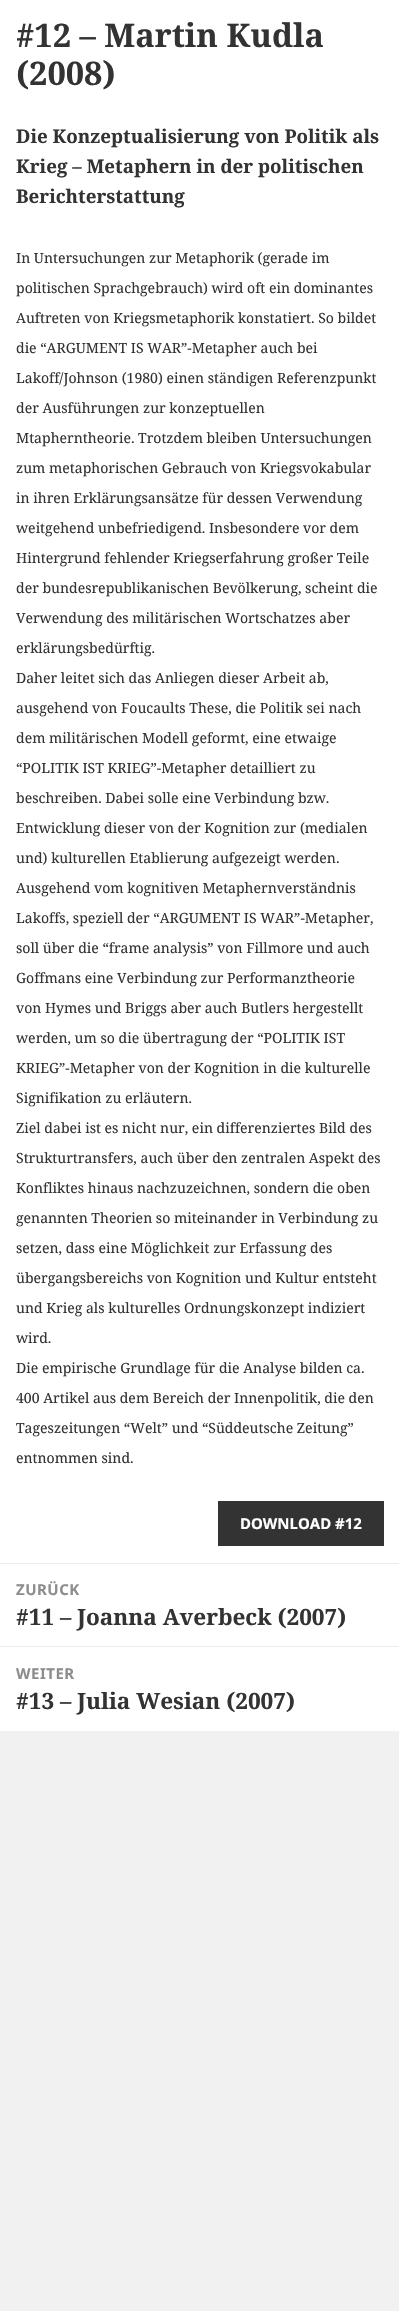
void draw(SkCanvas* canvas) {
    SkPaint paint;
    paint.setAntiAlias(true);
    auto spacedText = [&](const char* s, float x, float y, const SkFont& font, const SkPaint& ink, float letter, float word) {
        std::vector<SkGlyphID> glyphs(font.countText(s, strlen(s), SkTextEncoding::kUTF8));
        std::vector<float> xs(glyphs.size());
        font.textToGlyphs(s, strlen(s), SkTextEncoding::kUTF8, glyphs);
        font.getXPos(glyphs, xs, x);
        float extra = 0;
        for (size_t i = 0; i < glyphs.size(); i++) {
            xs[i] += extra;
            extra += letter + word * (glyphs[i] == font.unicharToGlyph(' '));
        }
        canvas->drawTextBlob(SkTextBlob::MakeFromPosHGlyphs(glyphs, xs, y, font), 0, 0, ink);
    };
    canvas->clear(0xFFF1F1F1);
    paint.setColor(0xFFFFFFFF);
    canvas->drawRect(SkRect::MakeXYWH(0, 0, 399, 1563), paint);
    SkFont font1(fontMgr->matchFamilyStyle("Noto Serif", SkFontStyle::Bold()), 32.5f);
    font1.setSubpixel(true);
    paint.setColor(0xFF333333);
    canvas->drawString("#12 – Martin Kudla", 16, 47, font1, paint);
    canvas->drawString("(2008)", 16, 85, font1, paint);
    SkFont font2(fontMgr->matchFamilyStyle("Noto Serif", SkFontStyle::Bold()), 18.75f);
    font2.setSubpixel(true);
    canvas->drawString("Die Konzeptualisierung von Politik als", 16, 143, font2, paint);
    canvas->drawString("Krieg – Metaphern in der politischen", 16, 173, font2, paint);
    canvas->drawString("Berichterstattung", 16, 203, font2, paint);
    SkFont font3(fontMgr->matchFamilyStyle("Noto Serif", SkFontStyle::Normal()), 14.05f);
    font3.setSubpixel(true);
    canvas->drawString("In Untersuchungen zur Metaphorik (gerade im", 16, 263, font3, paint);
    canvas->drawString("politischen Sprachgebrauch) wird oft ein dominantes", 16, 293, font3, paint);
    canvas->drawString("Auftreten von Kriegsmetaphorik konstatiert. So bildet", 16, 323, font3, paint);
    canvas->drawString("die “ARGUMENT IS WAR”-Metapher auch bei", 16, 353, font3, paint);
    canvas->drawString("Lakoff/Johnson (1980) einen ständigen Referenzpunkt", 16, 383, font3, paint);
    canvas->drawString("der Ausführungen zur konzeptuellen", 16, 413, font3, paint);
    canvas->drawString("Mtapherntheorie. Trotzdem bleiben Untersuchungen", 16, 443, font3, paint);
    canvas->drawString("zum metaphorischen Gebrauch von Kriegsvokabular", 16, 473, font3, paint);
    canvas->drawString("in ihren Erklärungsansätze für dessen Verwendung", 16, 503, font3, paint);
    canvas->drawString("weitgehend unbefriedigend. Insbesondere vor dem", 16, 533, font3, paint);
    canvas->drawString("Hintergrund fehlender Kriegserfahrung großer Teile", 16, 563, font3, paint);
    canvas->drawString("der bundesrepublikanischen Bevölkerung, scheint die", 16, 593, font3, paint);
    canvas->drawString("Verwendung des militärischen Wortschatzes aber", 16, 623, font3, paint);
    canvas->drawString("erklärungsbedürftig.", 16, 653, font3, paint);
    canvas->drawString("Daher leitet sich das Anliegen dieser Arbeit ab,", 16, 683, font3, paint);
    canvas->drawString("ausgehend von Foucaults These, die Politik sei nach", 16, 713, font3, paint);
    canvas->drawString("dem militärischen Modell geformt, eine etwaige", 16, 743, font3, paint);
    canvas->drawString("“POLITIK IST KRIEG”-Metapher detailliert zu", 16, 773, font3, paint);
    canvas->drawString("beschreiben. Dabei solle eine Verbindung bzw.", 16, 803, font3, paint);
    canvas->drawString("Entwicklung dieser von der Kognition zur (medialen", 16, 833, font3, paint);
    canvas->drawString("und) kulturellen Etablierung aufgezeigt werden.", 16, 863, font3, paint);
    canvas->drawString("Ausgehend vom kognitiven Metaphernverständnis", 16, 893, font3, paint);
    canvas->drawString("Lakoffs, speziell der “ARGUMENT IS WAR”-Metapher,", 16, 923, font3, paint);
    canvas->drawString("soll über die “frame analysis” von Fillmore und auch", 16, 953, font3, paint);
    canvas->drawString("Goffmans eine Verbindung zur Performanztheorie", 16, 983, font3, paint);
    canvas->drawString("von Hymes und Briggs aber auch Butlers hergestellt", 16, 1013, font3, paint);
    canvas->drawString("werden, um so die übertragung der “POLITIK IST", 16, 1043, font3, paint);
    canvas->drawString("KRIEG”-Metapher von der Kognition in die kulturelle", 16, 1073, font3, paint);
    canvas->drawString("Signifikation zu erläutern.", 16, 1103, font3, paint);
    canvas->drawString("Ziel dabei ist es nicht nur, ein differenziertes Bild des", 16, 1133, font3, paint);
    canvas->drawString("Strukturtransfers, auch über den zentralen Aspekt des", 16, 1163, font3, paint);
    canvas->drawString("Konfliktes hinaus nachzuzeichnen, sondern die oben", 16, 1193, font3, paint);
    canvas->drawString("genannten Theorien so miteinander in Verbindung zu", 16, 1223, font3, paint);
    canvas->drawString("setzen, dass eine Möglichkeit zur Erfassung des", 16, 1253, font3, paint);
    canvas->drawString("übergangsbereichs von Kognition und Kultur entsteht", 16, 1283, font3, paint);
    canvas->drawString("und Krieg als kulturelles Ordnungskonzept indiziert", 16, 1313, font3, paint);
    canvas->drawString("wird.", 16, 1343, font3, paint);
    canvas->drawString("Die empirische Grundlage für die Analyse bilden ca.", 16, 1373, font3, paint);
    canvas->drawString("400 Artikel aus dem Bereich der Innenpolitik, die den", 16, 1403, font3, paint);
    canvas->drawString("Tageszeitungen “Welt” und “Süddeutsche Zeitung”", 16, 1433, font3, paint);
    canvas->drawString("entnommen sind.", 16, 1463, font3, paint);
    canvas->drawRect(SkRect::MakeXYWH(218, 1501, 166, 45), paint);
    SkFont font4(fontMgr->matchFamilyStyle("Noto Sans", SkFontStyle::Bold()), 15);
    font4.setSubpixel(true);
    paint.setColor(0xFFFFFFFF);
    canvas->drawString("DOWNLOAD #12", 240, 1529, font4, paint);
    canvas->drawRect(SkRect::MakeXYWH(0, 1564, 399, 167), paint);
    paint.setColor(0xFFEBEBEB);
    canvas->drawRect(SkRect::MakeXYWH(0, 1563, 399, 1), paint);
    paint.setColor(0xFF8D8D8D);
    spacedText("ZURÜCK", 16, 1595, font4, paint, 0.5f, 0);
    SkFont font5(fontMgr->matchFamilyStyle("Noto Serif", SkFontStyle::Bold()), 22.5f);
    font5.setSubpixel(true);
    paint.setColor(0xFF333333);
    canvas->drawString("#11 – Joanna Averbeck (2007)", 16, 1625, font5, paint);
    paint.setColor(0xFFEBEBEB);
    canvas->drawRect(SkRect::MakeXYWH(0, 1646, 399, 1), paint);
    paint.setColor(0xFF8D8D8D);
    spacedText("WEITER", 16, 1679, font4, paint, 0.5f, 0);
    paint.setColor(0xFF333333);
    canvas->drawString("#13 – Julia Wesian (2007)", 16, 1709, font5, paint);
}
